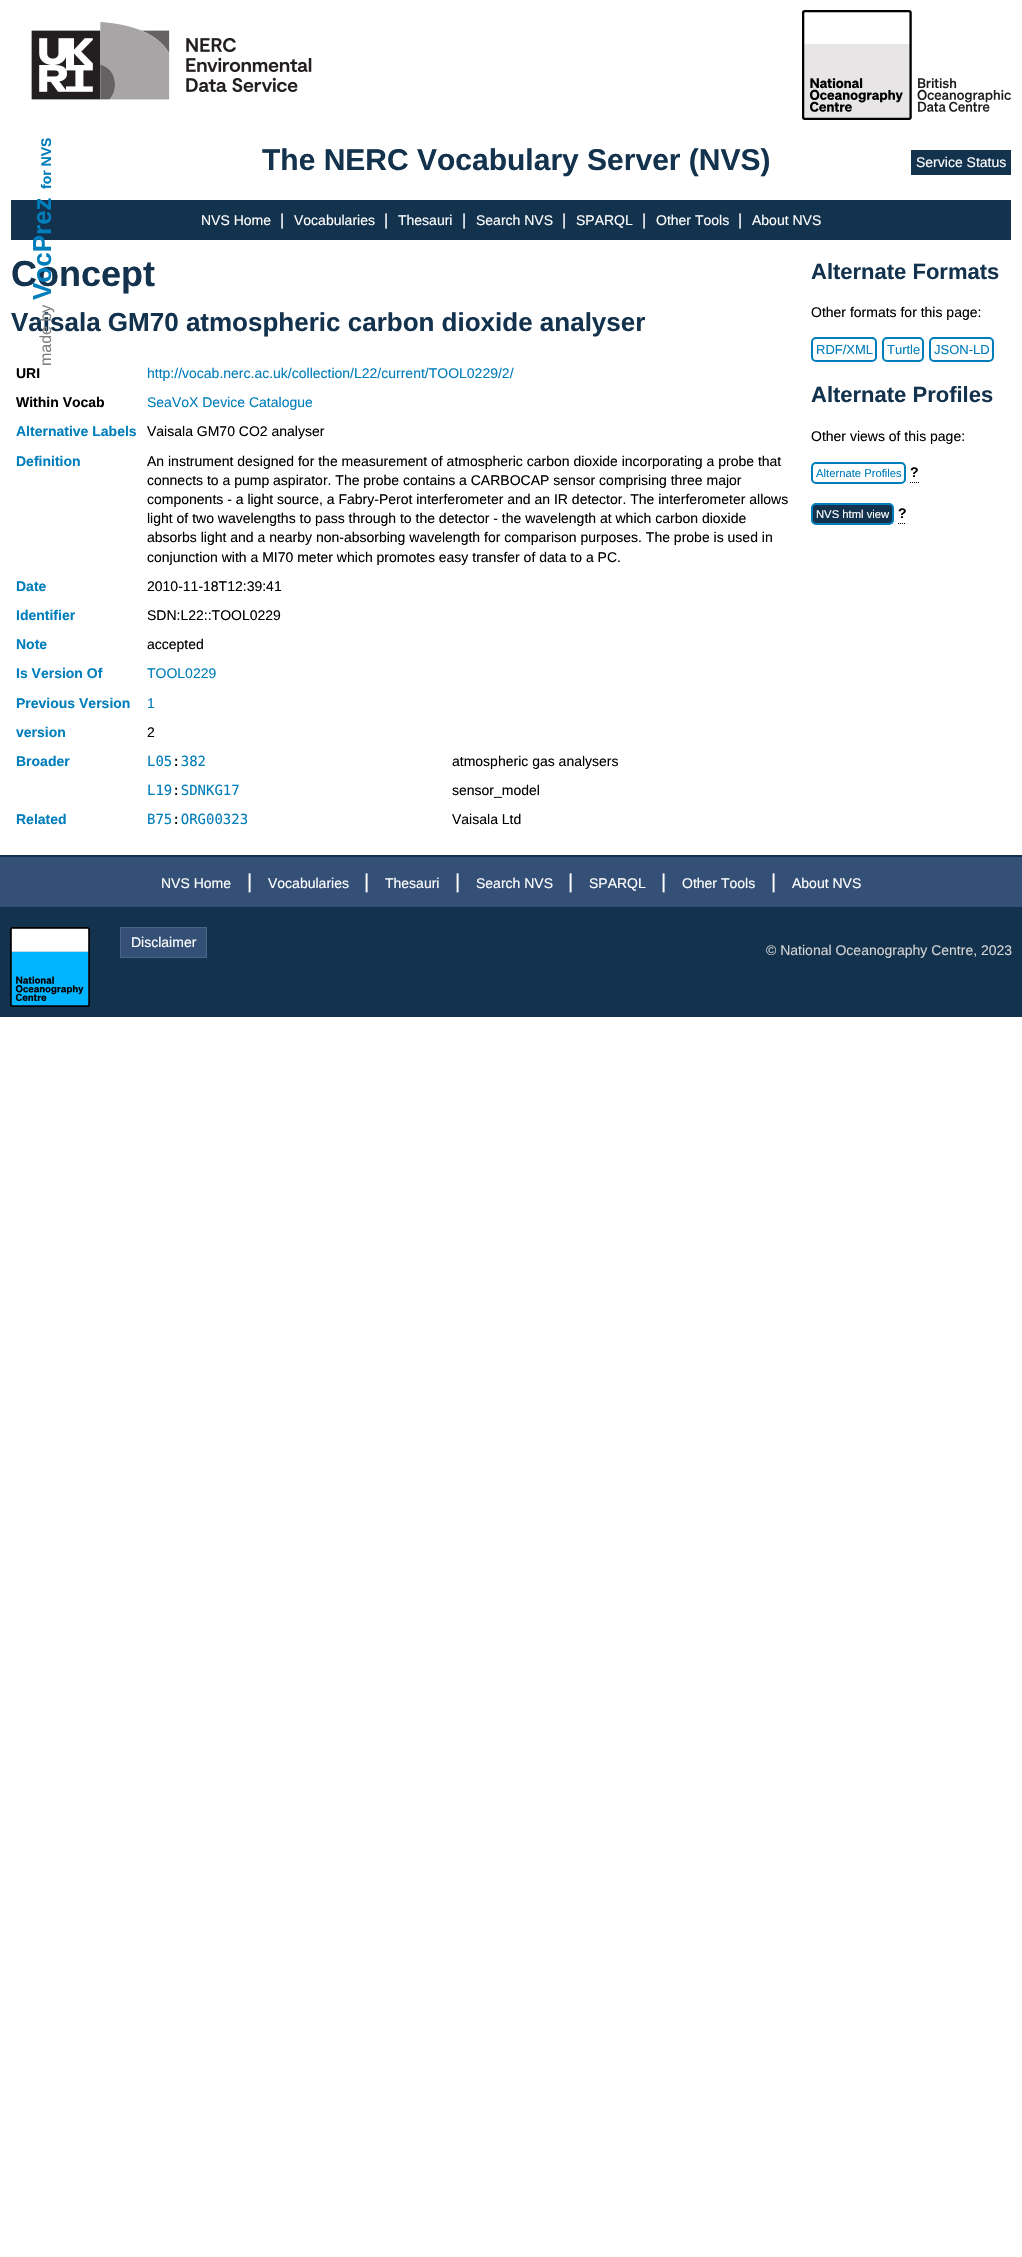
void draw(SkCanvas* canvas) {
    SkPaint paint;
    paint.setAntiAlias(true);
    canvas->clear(0xFFFFFFFF);
    SkFont font1(fontMgr->matchFamilyStyle("Liberation Sans", SkFontStyle::Bold()), 14);
    font1.setSubpixel(true);
    paint.setColor(0xFF007DBB);
    canvas->save();
    canvas->rotate(-90, 51, 189);
    canvas->drawString("for NVS", 51, 189, font1, paint);
    canvas->restore();
    paint.setColor(0xFF13324D);
    canvas->drawRect(SkRect::MakeXYWH(11, 200, 1000, 40), paint);
    SkFont font2(fontMgr->matchFamilyStyle("Liberation Sans", SkFontStyle::Bold()), 36);
    font2.setSubpixel(true);
    canvas->drawString("Concept", 11, 286, font2, paint);
    SkFont font3(fontMgr->matchFamilyStyle("Liberation Sans", SkFontStyle::Bold()), 26);
    font3.setSubpixel(true);
    paint.setColor(0xFF007DBB);
    canvas->save();
    canvas->rotate(-90, 51, 300);
    canvas->drawString("VocPrez", 51, 300, font3, paint);
    canvas->restore();
    paint.setColor(0xFF13324D);
    canvas->drawString("Vaisala GM70 atmospheric carbon dioxide analyser", 11, 331, font3, paint);
    SkFont font4(fontMgr->matchFamilyStyle("Liberation Sans", SkFontStyle::Normal()), 16);
    font4.setSubpixel(true);
    paint.setColor(0xFF808080);
    canvas->save();
    canvas->rotate(-90, 51, 366);
    canvas->drawString("made by", 51, 366, font4, paint);
    canvas->restore();
    canvas->drawImageRect(SkImages::DeferredFromEncodedData(SkData::MakeFromFileName("img1.png")), SkRect::MakeXYWH(31, 22, 281, 78), SkSamplingOptions());
    canvas->drawImageRect(SkImages::DeferredFromEncodedData(SkData::MakeFromFileName("img2.png")), SkRect::MakeXYWH(802, 10, 209, 110), SkSamplingOptions());
    SkFont font5(fontMgr->matchFamilyStyle("Liberation Sans", SkFontStyle::Bold()), 30);
    font5.setSubpixel(true);
    paint.setColor(0xFF13324D);
    canvas->drawString("The NERC Vocabulary Server (NVS)", 262, 170, font5, paint);
    canvas->drawRect(SkRect::MakeXYWH(911, 150, 100, 25), paint);
    SkFont font6(fontMgr->matchFamilyStyle("Liberation Sans", SkFontStyle::Normal()), 14);
    font6.setSubpixel(true);
    paint.setColor(0xFFFFFFFF);
    canvas->drawString("Service Status", 916, 167, font6, paint);
    canvas->drawString("NVS Home", 201, 225, font6, paint);
    canvas->drawString("|", 280, 225, font4, paint);
    canvas->drawString("Vocabularies", 294, 225, font6, paint);
    canvas->drawString("|", 384, 225, font4, paint);
    canvas->drawString("Thesauri", 398, 225, font6, paint);
    canvas->drawString("|", 462, 225, font4, paint);
    canvas->drawString("Search NVS", 476, 225, font6, paint);
    canvas->drawString("|", 562, 225, font4, paint);
    canvas->drawString("SPARQL", 576, 225, font6, paint);
    canvas->drawString("|", 642, 225, font4, paint);
    canvas->drawString("Other Tools", 656, 225, font6, paint);
    canvas->drawString("|", 738, 225, font4, paint);
    canvas->drawString("About NVS", 752, 225, font6, paint);
    paint.setColor(0xFF000000);
    canvas->drawString("URI", 16, 378, font1, paint);
    paint.setColor(0xFF007DBB);
    canvas->drawString("http://vocab.nerc.ac.uk/collection/L22/current/TOOL0229/2/", 147, 378, font6, paint);
    paint.setColor(0xFF000000);
    canvas->drawString("Within Vocab", 16, 407, font1, paint);
    paint.setColor(0xFF007DBB);
    canvas->drawString("SeaVoX Device Catalogue", 147, 407, font6, paint);
    canvas->drawString("Alternative Labels", 16, 436, font1, paint);
    paint.setColor(0xFF000000);
    canvas->drawString("Vaisala GM70 CO2 analyser", 147, 436, font6, paint);
    paint.setColor(0xFF007DBB);
    canvas->drawString("Definition", 16, 466, font1, paint);
    paint.setColor(0xFF000000);
    canvas->drawString("An instrument designed for the measurement of atmospheric carbon dioxide incorporating a probe that", 147, 466, font6, paint);
    canvas->drawString("connects to a pump aspirator. The probe contains a CARBOCAP sensor comprising three major", 147, 485, font6, paint);
    canvas->drawString("components - a light source, a Fabry-Perot interferometer and an IR detector. The interferometer allows", 147, 504, font6, paint);
    canvas->drawString("light of two wavelengths to pass through to the detector - the wavelength at which carbon dioxide", 147, 523, font6, paint);
    canvas->drawString("absorbs light and a nearby non-absorbing wavelength for comparison purposes. The probe is used in", 147, 542, font6, paint);
    canvas->drawString("conjunction with a MI70 meter which promotes easy transfer of data to a PC.", 147, 562, font6, paint);
    paint.setColor(0xFF007DBB);
    canvas->drawString("Date", 16, 591, font1, paint);
    paint.setColor(0xFF000000);
    canvas->drawString("2010-11-18T12:39:41", 147, 591, font6, paint);
    paint.setColor(0xFF007DBB);
    canvas->drawString("Identifier", 16, 620, font1, paint);
    paint.setColor(0xFF000000);
    canvas->drawString("SDN:L22::TOOL0229", 147, 620, font6, paint);
    paint.setColor(0xFF007DBB);
    canvas->drawString("Note", 16, 649, font1, paint);
    paint.setColor(0xFF000000);
    canvas->drawString("accepted", 147, 649, font6, paint);
    paint.setColor(0xFF007DBB);
    canvas->drawString("Is Version Of", 16, 678, font1, paint);
    canvas->drawString("TOOL0229", 147, 678, font6, paint);
    canvas->drawString("Previous Version", 16, 708, font1, paint);
    canvas->drawString("1", 147, 708, font6, paint);
    canvas->drawString("version", 16, 737, font1, paint);
    paint.setColor(0xFF000000);
    canvas->drawString("2", 147, 737, font6, paint);
    paint.setColor(0xFF007DBB);
    canvas->drawString("Broader", 16, 766, font1, paint);
    SkFont font7(fontMgr->matchFamilyStyle("DejaVu Sans Mono", SkFontStyle::Normal()), 14);
    font7.setSubpixel(true);
    canvas->drawString("L05 382", 147, 766, font7, paint);
    paint.setColor(0xFF000000);
    canvas->drawString(":", 172, 766, font7, paint);
    canvas->drawString("atmospheric gas analysers", 452, 766, font6, paint);
    paint.setColor(0xFF007DBB);
    canvas->drawString("L19 SDNKG17", 147, 795, font7, paint);
    paint.setColor(0xFF000000);
    canvas->drawString(":", 172, 795, font7, paint);
    canvas->drawString("sensor_model", 452, 795, font6, paint);
    paint.setColor(0xFF007DBB);
    canvas->drawString("Related", 16, 824, font1, paint);
    canvas->drawString("B75 ORG00323", 147, 824, font7, paint);
    paint.setColor(0xFF000000);
    canvas->drawString(":", 172, 824, font7, paint);
    canvas->drawString("Vaisala Ltd", 452, 824, font6, paint);
    SkFont font8(fontMgr->matchFamilyStyle("Liberation Sans", SkFontStyle::Bold()), 22);
    font8.setSubpixel(true);
    paint.setColor(0xFF13324D);
    canvas->drawString("Alternate Formats", 811, 279, font8, paint);
    paint.setColor(0xFF000000);
    canvas->drawString("Other formats for this page:", 811, 317, font6, paint);
    paint.setStyle(SkPaint::kStroke_Style);
    paint.setStrokeWidth(2);
    paint.setColor(0xFF007DBB);
    canvas->drawRoundRect(SkRect::MakeXYWH(812, 338, 64, 23), 4, 4, paint);
    SkFont font9(fontMgr->matchFamilyStyle("Liberation Sans", SkFontStyle::Normal()), 13);
    font9.setSubpixel(true);
    paint.setStyle(SkPaint::kFill_Style);
    canvas->drawString("RDF/XML", 816, 354, font9, paint);
    paint.setStyle(SkPaint::kStroke_Style);
    canvas->drawRoundRect(SkRect::MakeXYWH(883, 338, 40, 23), 4, 4, paint);
    paint.setStyle(SkPaint::kFill_Style);
    canvas->drawString("Turtle", 887, 354, font9, paint);
    paint.setStyle(SkPaint::kStroke_Style);
    canvas->drawRoundRect(SkRect::MakeXYWH(930, 338, 63, 23), 4, 4, paint);
    paint.setStyle(SkPaint::kFill_Style);
    canvas->drawString("JSON-LD", 934, 354, font9, paint);
    paint.setColor(0xFF13324D);
    canvas->drawString("Alternate Profiles", 811, 402, font8, paint);
    paint.setColor(0xFF000000);
    canvas->drawString("Other views of this page:", 811, 441, font6, paint);
    paint.setStyle(SkPaint::kStroke_Style);
    paint.setColor(0xFF007DBB);
    canvas->drawRoundRect(SkRect::MakeXYWH(812, 463, 93, 20), 4, 4, paint);
    SkFont font10(fontMgr->matchFamilyStyle("Liberation Sans", SkFontStyle::Normal()), 11.25f);
    font10.setSubpixel(true);
    paint.setStyle(SkPaint::kFill_Style);
    canvas->drawString("Alternate Profiles", 816, 477, font10, paint);
    paint.setStyle(SkPaint::kStroke_Style);
    paint.setStrokeWidth(1);
    paint.setColor(0xFF000000);
    paint.setPathEffect(SkDashPathEffect::Make({{1, 1}}, 0));
    canvas->drawPath(SkPathBuilder().moveTo(910, 482.5f).lineTo(919, 482.5f).detach(), paint);
    paint.setPathEffect(nullptr);
    paint.setStyle(SkPaint::kFill_Style);
    canvas->drawString("?", 910, 477, font1, paint);
    paint.setColor(0xFF13324D);
    canvas->drawRoundRect(SkRect::MakeXYWH(812, 504, 81, 20), 4, 4, paint);
    paint.setStyle(SkPaint::kStroke_Style);
    paint.setStrokeWidth(2);
    paint.setColor(0xFF007DBB);
    canvas->drawRoundRect(SkRect::MakeXYWH(812, 504, 81, 20), 4, 4, paint);
    paint.setStyle(SkPaint::kFill_Style);
    paint.setColor(0xFFFFFFFF);
    canvas->drawString("NVS html view", 816, 518, font10, paint);
    paint.setStyle(SkPaint::kStroke_Style);
    paint.setStrokeWidth(1);
    paint.setColor(0xFF000000);
    paint.setPathEffect(SkDashPathEffect::Make({{1, 1}}, 0));
    canvas->drawPath(SkPathBuilder().moveTo(898, 523.5f).lineTo(906, 523.5f).detach(), paint);
    paint.setPathEffect(nullptr);
    paint.setStyle(SkPaint::kFill_Style);
    canvas->drawString("?", 898, 518, font1, paint);
    paint.setColor(0xFF13324D);
    canvas->drawRect(SkRect::MakeXYWH(0, 855, 1022, 2), paint);
    paint.setColor(0xFF355077);
    canvas->drawRect(SkRect::MakeXYWH(0, 857, 1022, 50), paint);
    paint.setColor(0xFFFFFFFF);
    canvas->drawString("NVS Home", 161, 888, font6, paint);
    SkFont font11(fontMgr->matchFamilyStyle("Liberation Sans", SkFontStyle::Normal()), 20);
    font11.setSubpixel(true);
    canvas->drawString("|", 247, 888, font11, paint);
    canvas->drawString("Vocabularies", 268, 888, font6, paint);
    canvas->drawString("|", 364, 888, font11, paint);
    canvas->drawString("Thesauri", 385, 888, font6, paint);
    canvas->drawString("|", 455, 888, font11, paint);
    canvas->drawString("Search NVS", 476, 888, font6, paint);
    canvas->drawString("|", 568, 888, font11, paint);
    canvas->drawString("SPARQL", 589, 888, font6, paint);
    canvas->drawString("|", 661, 888, font11, paint);
    canvas->drawString("Other Tools", 682, 888, font6, paint);
    canvas->drawString("|", 771, 888, font11, paint);
    canvas->drawString("About NVS", 792, 888, font6, paint);
    paint.setColor(0xFF13324D);
    canvas->drawRect(SkRect::MakeXYWH(0, 907, 1022, 110), paint);
    paint.setColor(0xFF355077);
    canvas->drawRect(SkRect::MakeXYWH(10, 927, 80, 80), paint);
    canvas->drawImageRect(SkImages::DeferredFromEncodedData(SkData::MakeFromFileName("img3.png")), SkRect::MakeXYWH(10, 927, 80, 80), SkSamplingOptions());
    canvas->drawRect(SkRect::MakeXYWH(120.5f, 927.5f, 86, 30), paint);
    paint.setStyle(SkPaint::kStroke_Style);
    paint.setColor(0xFF49648B);
    canvas->drawRect(SkRect::MakeXYWH(120.5f, 927.5f, 86, 30), paint);
    paint.setStyle(SkPaint::kFill_Style);
    paint.setColor(0xFFFFFFFF);
    canvas->drawString("Disclaimer", 131, 947, font6, paint);
    paint.setColor(0xFFD3D3D3);
    canvas->drawString("© National Oceanography Centre, 2023", 766, 955, font6, paint);
}
